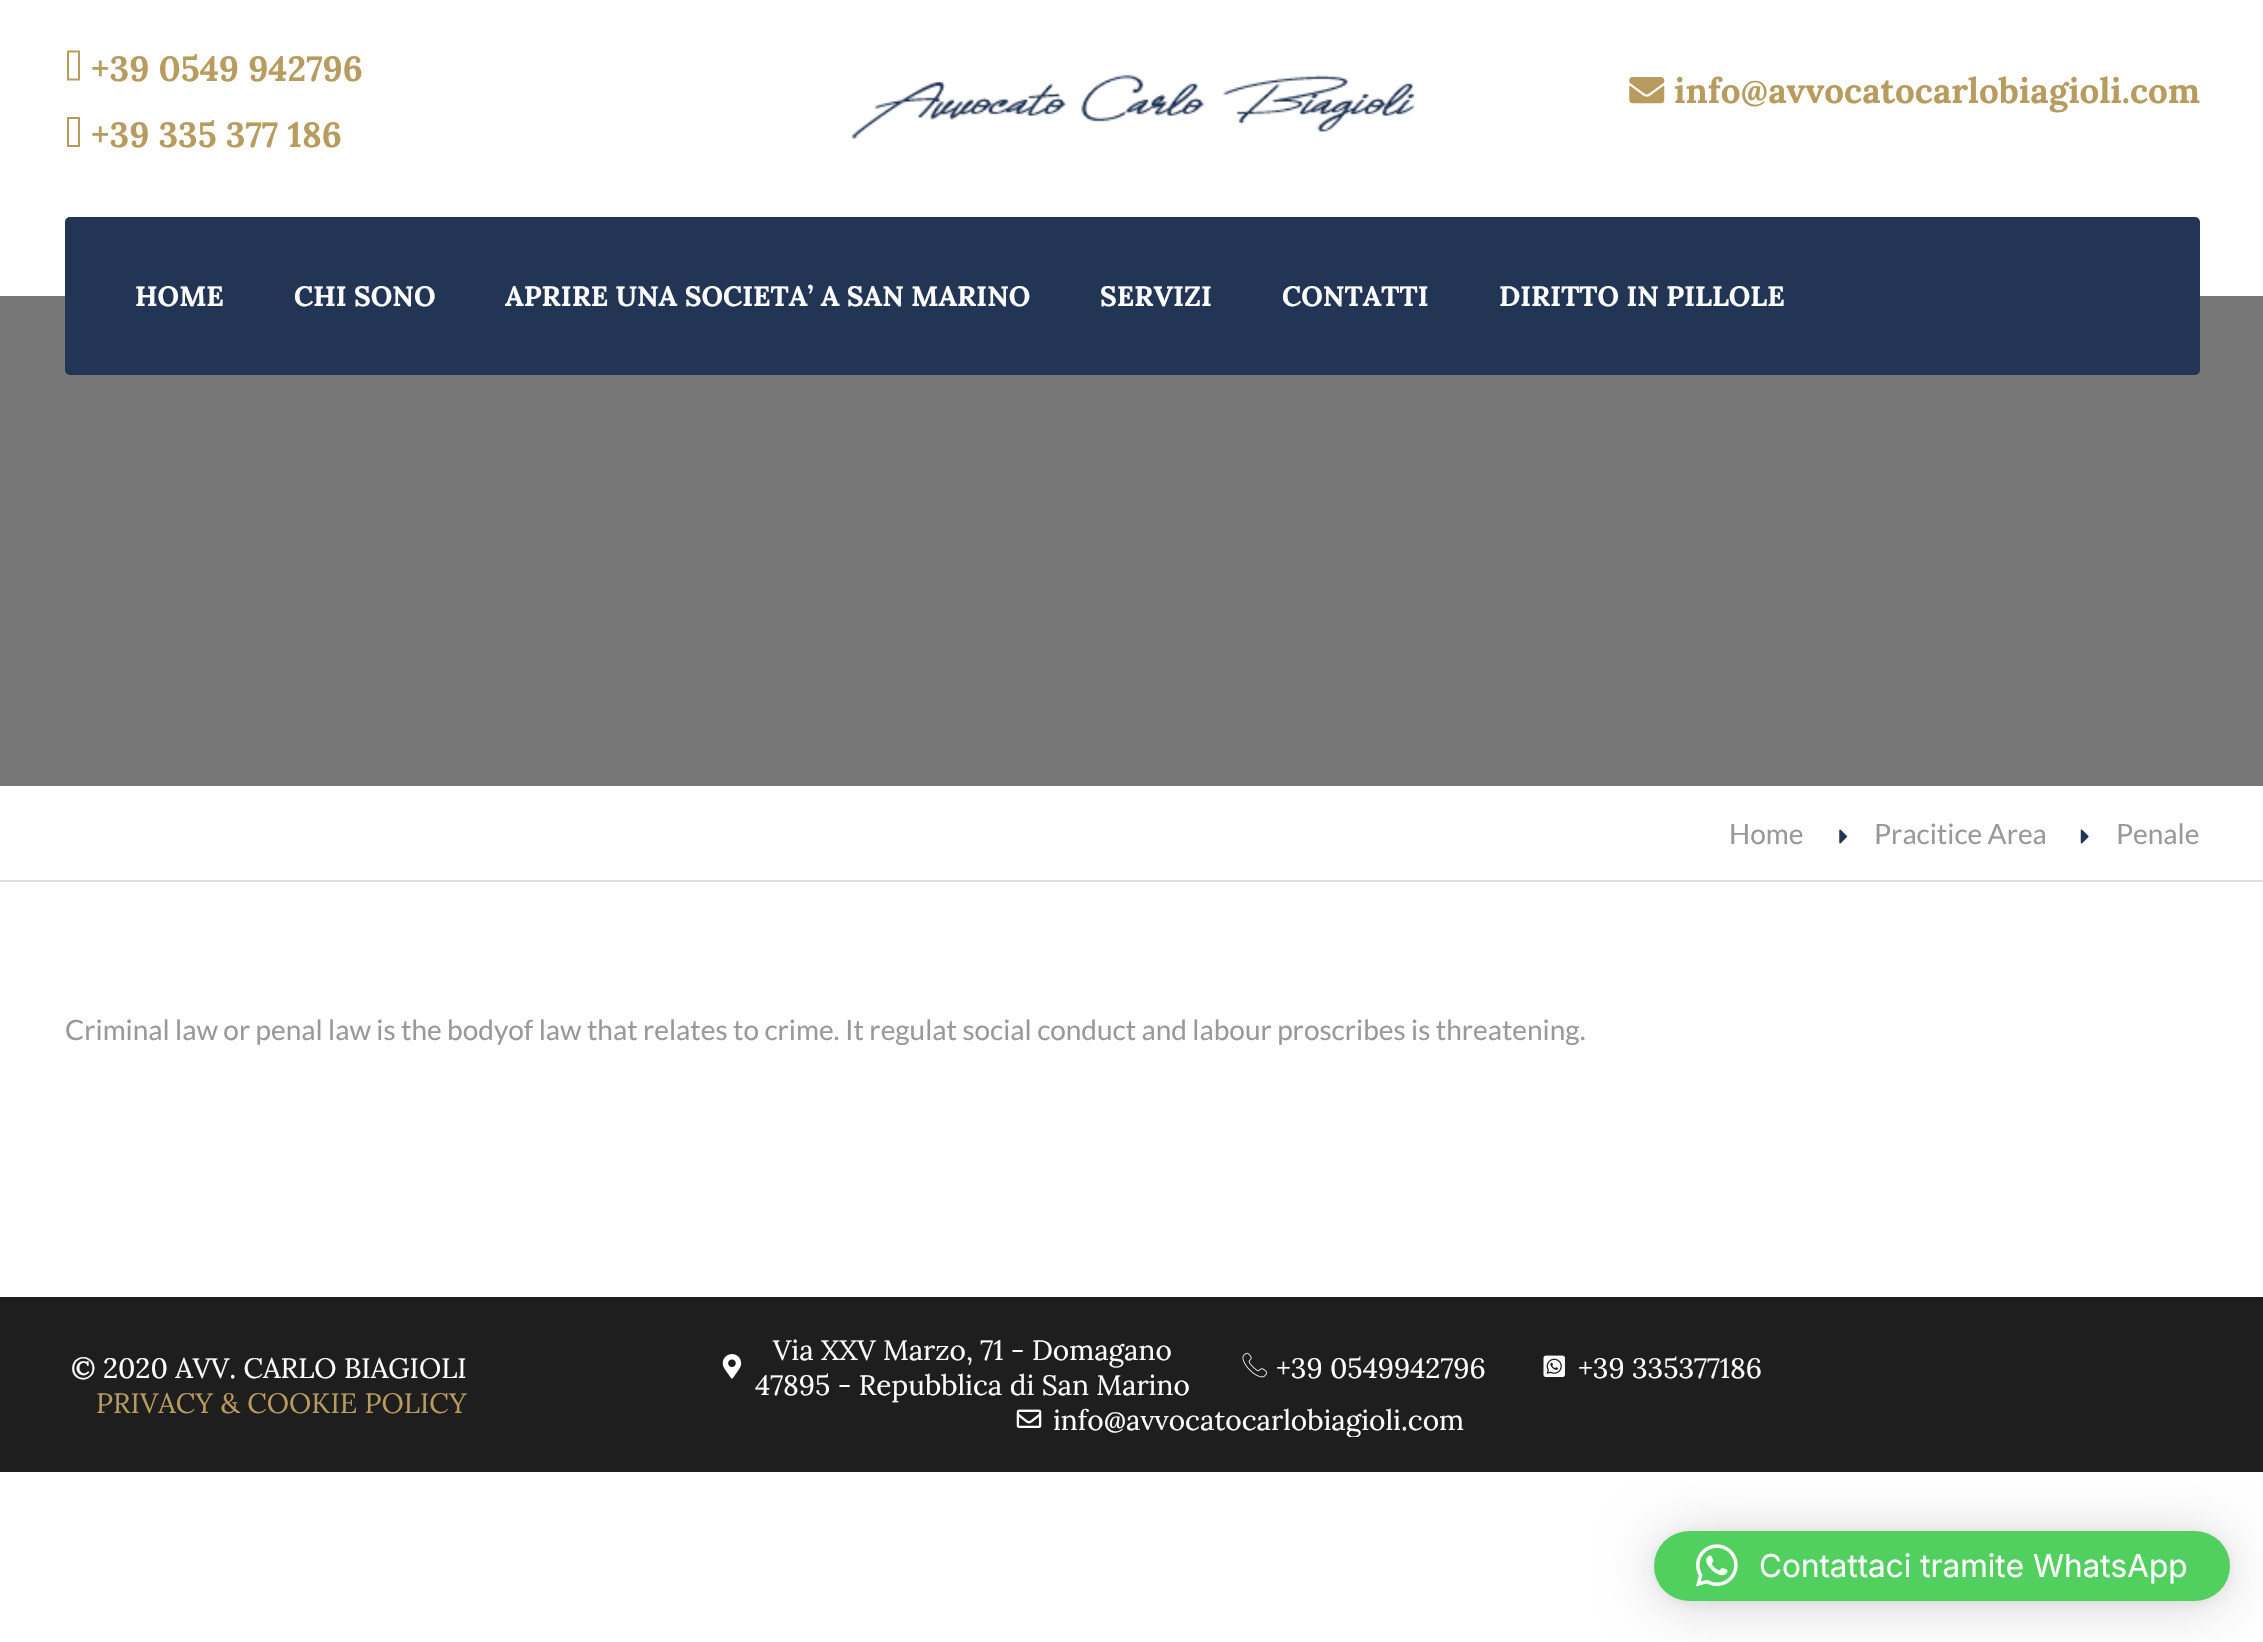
void draw(SkCanvas* canvas) {
    SkPaint paint;
    paint.setAntiAlias(true);
    canvas->clear(0xFFFFFFFF);
    paint.setColor(0xFFB89B5E);
    canvas->drawPath(SkPathBuilder().moveTo(69, 78.5f).lineTo(78, 78.5f).lineTo(78, 52.5f).lineTo(69, 52.5f).close().moveTo(67, 80.5f).lineTo(67, 50.5f).lineTo(80, 50.5f).lineTo(80, 80.5f).close().detach(), paint);
    SkFont font1(fontMgr->matchFamilyStyle("Lora", SkFontStyle::Bold()), 35);
    font1.setSubpixel(true);
    canvas->drawString("+39 0549 942796", 91, 81, font1, paint);
    canvas->drawPath(SkPathBuilder().moveTo(69, 145).lineTo(78, 145).lineTo(78, 119).lineTo(69, 119).close().moveTo(67, 147).lineTo(67, 117).lineTo(80, 117).lineTo(80, 147).close().detach(), paint);
    canvas->drawString("+39 335 377 186", 91, 147, font1, paint);
    canvas->drawImageRect(SkImages::DeferredFromEncodedData(SkData::MakeFromFileName("img1.png")), SkRect::MakeXYWH(851, 74, 563, 65), SkSamplingOptions());
    canvas->drawImageRect(SkImages::DeferredFromEncodedData(SkData::MakeFromFileName("img2.png")), SkRect::MakeXYWH(1629, 77, 36, 27), SkSamplingOptions());
    canvas->drawString("info@avvocatocarlobiagioli.com", 1674, 103, font1, paint);
    paint.setColor(0xFF777777);
    canvas->drawRect(SkRect::MakeXYWH(0, 296, 2263, 490), paint);
    paint.setColor(0xFF223555);
    canvas->drawRoundRect(SkRect::MakeXYWH(65, 217, 2135, 158), 5, 5, paint);
    SkFont font2(fontMgr->matchFamilyStyle("Lora", SkFontStyle::Bold()), 28);
    font2.setSubpixel(true);
    paint.setColor(0xFFFFFFFF);
    canvas->drawString("HOME", 135, 306, font2, paint);
    canvas->drawString("CHI SONO", 294, 306, font2, paint);
    canvas->drawString("APRIRE UNA SOCIETA’ A SAN MARINO", 505, 306, font2, paint);
    canvas->drawString("SERVIZI", 1100, 306, font2, paint);
    canvas->drawString("CONTATTI", 1282, 306, font2, paint);
    canvas->drawString("DIRITTO IN PILLOLE", 1499, 306, font2, paint);
    paint.setColor(0xFFE0E0E0);
    canvas->drawRect(SkRect::MakeXYWH(0, 880, 2263, 2), paint);
    SkFont font3(fontMgr->matchFamilyStyle("Lato", SkFontStyle::Normal()), 28);
    font3.setSubpixel(true);
    paint.setColor(0xFF999999);
    canvas->drawString("Home", 1729, 844, font3, paint);
    canvas->drawImageRect(SkImages::DeferredFromEncodedData(SkData::MakeFromFileName("img3.png")), SkRect::MakeXYWH(1839, 829, 9, 15), SkSamplingOptions());
    canvas->drawString("Pracitice Area", 1874, 844, font3, paint);
    canvas->drawImageRect(SkImages::DeferredFromEncodedData(SkData::MakeFromFileName("img4.png")), SkRect::MakeXYWH(2080, 829, 9, 15), SkSamplingOptions());
    canvas->drawString("Penale", 2116, 844, font3, paint);
    canvas->drawString("Criminal law or penal law is the bodyof law that relates to crime. It regulat social conduct and labour proscribes is threatening.", 65, 1040, font3, paint);
    paint.setColor(0xFF1E1E1E);
    canvas->drawRect(SkRect::MakeXYWH(0, 1297, 2263, 175), paint);
    SkFont font4(fontMgr->matchFamilyStyle("Lora", SkFontStyle::Normal()), 28);
    font4.setSubpixel(true);
    paint.setColor(0xFFFFFFFF);
    canvas->drawString("© 2020 AVV. CARLO BIAGIOLI", 71, 1378, font4, paint);
    paint.setColor(0xFFB89B5E);
    canvas->drawString("PRIVACY & COOKIE POLICY", 96, 1413, font4, paint);
    canvas->drawImageRect(SkImages::DeferredFromEncodedData(SkData::MakeFromFileName("img5.png")), SkRect::MakeXYWH(722, 1354, 20, 25), SkSamplingOptions());
    paint.setColor(0xFFFFFFFF);
    canvas->drawString("Via XXV Marzo, 71 - Domagano", 773, 1360, font4, paint);
    canvas->drawString("47895 - Repubblica di San Marino", 755, 1395, font4, paint);
    canvas->drawImageRect(SkImages::DeferredFromEncodedData(SkData::MakeFromFileName("img6.png")), SkRect::MakeXYWH(1242, 1352, 25, 26), SkSamplingOptions());
    canvas->drawString("+39 0549942796", 1276, 1378, font4, paint);
    canvas->drawImageRect(SkImages::DeferredFromEncodedData(SkData::MakeFromFileName("img7.png")), SkRect::MakeXYWH(1543, 1355, 22, 22), SkSamplingOptions());
    canvas->drawString("+39 335377186", 1578, 1378, font4, paint);
    canvas->drawImageRect(SkImages::DeferredFromEncodedData(SkData::MakeFromFileName("img8.png")), SkRect::MakeXYWH(1016, 1409, 26, 19), SkSamplingOptions());
    canvas->save();
    canvas->clipRect(SkRect::MakeXYWH(520, 1332, 1438, 105));
    canvas->drawString("info@avvocatocarlobiagioli.com", 1053, 1430, font4, paint);
    canvas->restore();
    paint.setColor(0x29000000);
    paint.setMaskFilter(SkMaskFilter::MakeBlur(kNormal_SkBlurStyle, 28));
    canvas->drawRoundRect(SkRect::MakeXYWH(1654, 1535, 576, 70), 35, 35, paint);
    paint.setMaskFilter(nullptr);
    paint.setColor(0x0F000000);
    paint.setMaskFilter(SkMaskFilter::MakeBlur(kNormal_SkBlurStyle, 5));
    canvas->drawRoundRect(SkRect::MakeXYWH(1654, 1533, 576, 70), 35, 35, paint);
    paint.setMaskFilter(nullptr);
    paint.setColor(0xFF51D05F);
    canvas->drawRoundRect(SkRect::MakeXYWH(1654, 1531, 576, 70), 35, 35, paint);
    canvas->drawImageRect(SkImages::DeferredFromEncodedData(SkData::MakeFromFileName("img9.png")), SkRect::MakeXYWH(1695, 1544, 43, 43), SkSamplingOptions());
    SkFont font5(fontMgr->matchFamilyStyle("Inter", SkFontStyle::Normal()), 31.5f);
    font5.setSubpixel(true);
    paint.setColor(0xFFFFFFFF);
    canvas->drawString("Contattaci tramite WhatsApp", 1759, 1577, font5, paint);
}
